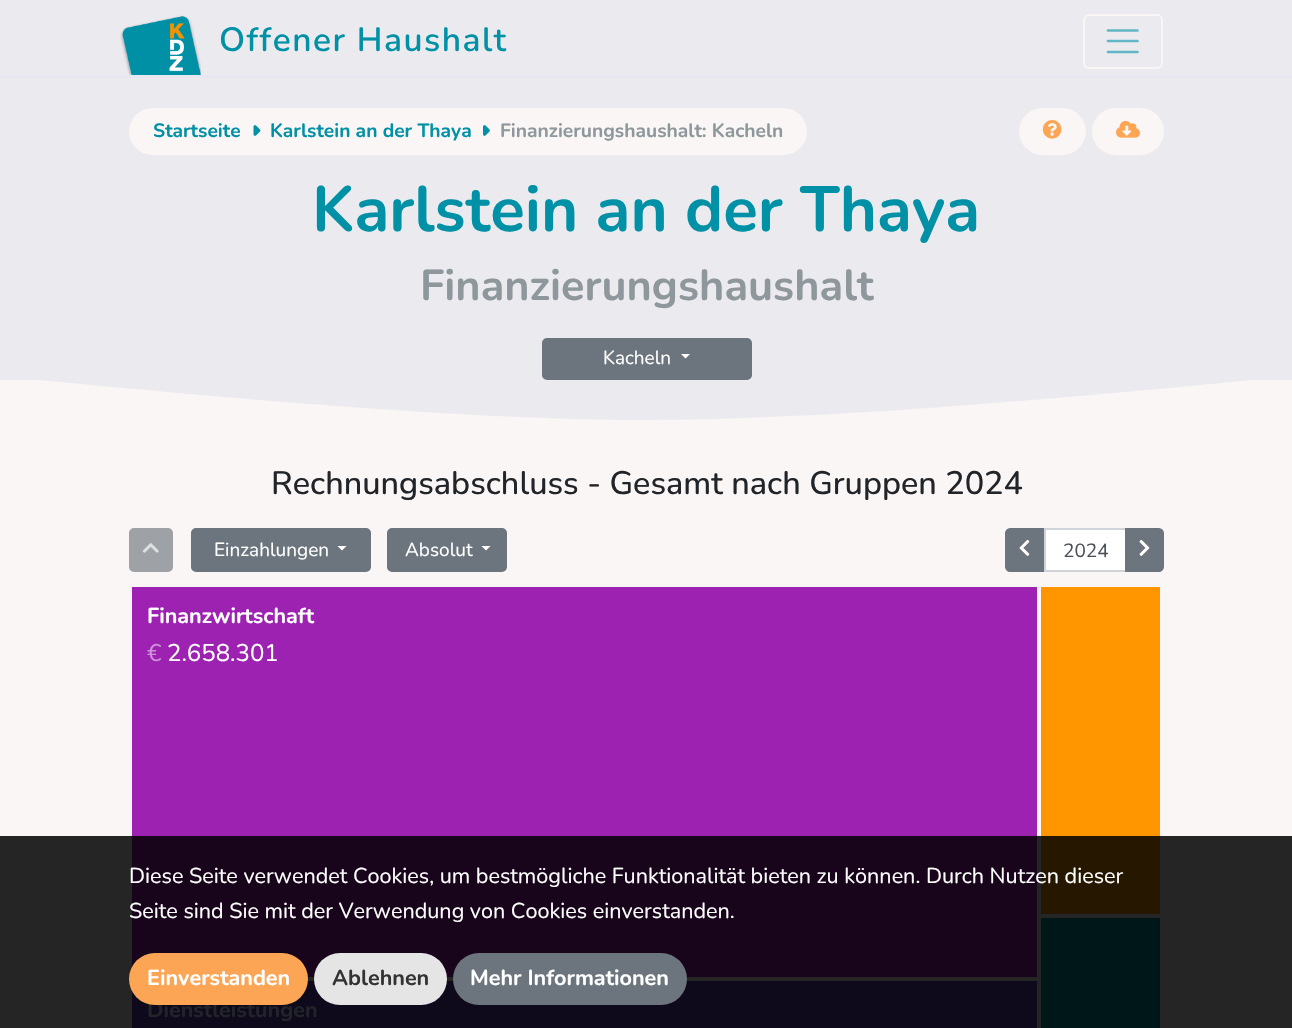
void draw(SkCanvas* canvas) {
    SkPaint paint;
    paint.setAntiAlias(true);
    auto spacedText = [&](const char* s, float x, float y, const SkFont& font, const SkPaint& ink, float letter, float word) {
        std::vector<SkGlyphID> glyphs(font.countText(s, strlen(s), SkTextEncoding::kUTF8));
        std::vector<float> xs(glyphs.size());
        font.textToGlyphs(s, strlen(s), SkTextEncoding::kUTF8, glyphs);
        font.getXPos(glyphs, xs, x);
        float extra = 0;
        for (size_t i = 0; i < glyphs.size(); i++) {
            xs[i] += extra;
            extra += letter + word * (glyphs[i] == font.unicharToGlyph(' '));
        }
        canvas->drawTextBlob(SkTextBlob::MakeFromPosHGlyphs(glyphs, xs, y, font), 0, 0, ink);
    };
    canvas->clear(0xFFFAF6F6);
    paint.setColor(0xFF262525);
    canvas->drawRect(SkRect::MakeXYWH(0, 836, 1292, 192), paint);
    paint.setColor(0xFFEBEAEF);
    canvas->drawRect(SkRect::MakeXYWH(0, 0, 1292, 75), paint);
    paint.setColor(0xFFE8E6EE);
    canvas->drawRect(SkRect::MakeXYWH(0, 75, 1292, 3), paint);
    canvas->drawImageRect(SkImages::DeferredFromEncodedData(SkData::MakeFromFileName("img1.png")), SkRect::MakeXYWH(120, 15, 81, 60), SkSamplingOptions());
    SkFont font1(fontMgr->matchFamilyStyle("Nunito", SkFontStyle(600, SkFontStyle::kNormal_Width, SkFontStyle::kUpright_Slant)), 33.5f);
    font1.setSubpixel(true);
    paint.setColor(0xFF0091A6);
    spacedText("Offener Haushalt", 219, 51, font1, paint, 1.5f, 0);
    paint.setStyle(SkPaint::kStroke_Style);
    paint.setStrokeWidth(2);
    paint.setColor(0xFFFAF6F6);
    canvas->drawRoundRect(SkRect::MakeXYWH(1084, 15, 78, 53), 5, 5, paint);
    paint.setStrokeWidth(2.7f);
    paint.setStrokeCap(SkPaint::kRound_Cap);
    paint.setColor(0xFF63B6C5);
    canvas->drawPath(SkPathBuilder().moveTo(1108, 30.5f).lineTo(1137.5f, 30.5f).moveTo(1108, 41).lineTo(1137.5f, 41).moveTo(1108, 52).lineTo(1137.5f, 52).detach(), paint);
    paint.setStyle(SkPaint::kFill_Style);
    paint.setColor(0xFFEBEAEF);
    canvas->drawRect(SkRect::MakeXYWH(0, 78, 1292, 302), paint);
    paint.setColor(0xFFFAF6F6);
    canvas->drawRoundRect(SkRect::MakeXYWH(129, 108, 678, 47), 23.5f, 23.5f, paint);
    SkFont font2(fontMgr->matchFamilyStyle("Nunito", SkFontStyle::Bold()), 19.25f);
    font2.setSubpixel(true);
    paint.setColor(0xFF0091A6);
    canvas->drawString("Startseite", 153, 137, font2, paint);
    canvas->drawImageRect(SkImages::DeferredFromEncodedData(SkData::MakeFromFileName("img2.png")), SkRect::MakeXYWH(253, 125, 8, 11), SkSamplingOptions());
    canvas->drawString("Karlstein an der Thaya", 270, 137, font2, paint);
    canvas->drawImageRect(SkImages::DeferredFromEncodedData(SkData::MakeFromFileName("img3.png")), SkRect::MakeXYWH(483, 125, 7, 11), SkSamplingOptions());
    paint.setColor(0xFF8E989C);
    canvas->drawString("Finanzierungshaushalt: Kacheln", 500, 137, font2, paint);
    paint.setColor(0xFFFAF6F6);
    canvas->drawRoundRect(SkRect::MakeXYWH(1019, 108, 67, 47), 23.5f, 23.5f, paint);
    canvas->drawImageRect(SkImages::DeferredFromEncodedData(SkData::MakeFromFileName("img4.png")), SkRect::MakeXYWH(1042, 120, 20, 19), SkSamplingOptions());
    canvas->drawRoundRect(SkRect::MakeXYWH(1092, 108, 72, 47), 23.5f, 23.5f, paint);
    canvas->drawImageRect(SkImages::DeferredFromEncodedData(SkData::MakeFromFileName("img5.png")), SkRect::MakeXYWH(1116, 120, 24, 18), SkSamplingOptions());
    SkFont font3(fontMgr->matchFamilyStyle("Nunito", SkFontStyle::Bold()), 63.75f);
    font3.setSubpixel(true);
    paint.setColor(0xFF0091A6);
    canvas->drawString("Karlstein an der Thaya", 312, 231, font3, paint);
    SkFont font4(fontMgr->matchFamilyStyle("Nunito", SkFontStyle::Bold()), 43.25f);
    font4.setSubpixel(true);
    paint.setColor(0xFF8E989C);
    canvas->drawString("Finanzierungshaushalt", 420, 300, font4, paint);
    canvas->save();
    canvas->clipRect(SkRect::MakeXYWH(0, 375, 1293, 47));
    paint.setColor(0xFFEBEAEF);
    canvas->drawPath(SkPathBuilder(SkPathFillType::kEvenOdd).moveTo(0, 141).lineTo(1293, 141).lineTo(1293, 376).cubicTo(1006, 405, 790, 420, 646, 420).cubicTo(503, 420, 287, 405, 0, 376).close().detach(), paint);
    canvas->restore();
    paint.setColor(0xFF6C757D);
    canvas->drawRoundRect(SkRect::MakeXYWH(543, 339, 208, 40), 4, 4, paint);
    paint.setStyle(SkPaint::kStroke_Style);
    paint.setStrokeWidth(2);
    paint.setStrokeCap(SkPaint::kButt_Cap);
    canvas->drawRoundRect(SkRect::MakeXYWH(543, 339, 208, 40), 4, 4, paint);
    SkFont font5(fontMgr->matchFamilyStyle("Nunito", SkFontStyle::Normal()), 19);
    font5.setSubpixel(true);
    paint.setStyle(SkPaint::kFill_Style);
    paint.setColor(0xFFFFFFFF);
    canvas->drawString("Kacheln", 603, 364, font5, paint);
    canvas->drawPath(SkPathBuilder().moveTo(681, 354).lineTo(690, 354).lineTo(685.5f, 358.5f).close().detach(), paint);
    SkFont font6(fontMgr->matchFamilyStyle("Nunito", SkFontStyle(500, SkFontStyle::kNormal_Width, SkFontStyle::kUpright_Slant)), 32.4f);
    font6.setSubpixel(true);
    paint.setColor(0xFF212529);
    canvas->drawString("Rechnungsabschluss - Gesamt nach Gruppen 2024", 271, 494, font6, paint);
    paint.setColor(0xFF9EA2A7);
    canvas->drawRoundRect(SkRect::MakeXYWH(130, 529, 42, 42), 4, 4, paint);
    paint.setStyle(SkPaint::kStroke_Style);
    canvas->drawRoundRect(SkRect::MakeXYWH(130, 529, 42, 42), 4, 4, paint);
    canvas->drawImageRect(SkImages::DeferredFromEncodedData(SkData::MakeFromFileName("img6.png")), SkRect::MakeXYWH(142, 543, 17, 10), SkSamplingOptions());
    paint.setStyle(SkPaint::kFill_Style);
    paint.setColor(0xFF6C757D);
    canvas->drawRoundRect(SkRect::MakeXYWH(192, 529, 178, 42), 4, 4, paint);
    paint.setStyle(SkPaint::kStroke_Style);
    canvas->drawRoundRect(SkRect::MakeXYWH(192, 529, 178, 42), 4, 4, paint);
    paint.setStyle(SkPaint::kFill_Style);
    paint.setColor(0xFFFFFFFF);
    canvas->drawString("Einzahlungen", 214, 556, font5, paint);
    canvas->drawPath(SkPathBuilder().moveTo(337.5f, 546).lineTo(346.5f, 546).lineTo(342, 550.5f).close().detach(), paint);
    paint.setColor(0xFF6C757D);
    canvas->drawRoundRect(SkRect::MakeXYWH(388, 529, 118, 42), 4, 4, paint);
    paint.setStyle(SkPaint::kStroke_Style);
    canvas->drawRoundRect(SkRect::MakeXYWH(388, 529, 118, 42), 4, 4, paint);
    paint.setStyle(SkPaint::kFill_Style);
    paint.setColor(0xFFFFFFFF);
    canvas->drawString("Absolut", 405, 556, font5, paint);
    canvas->drawPath(SkPathBuilder().moveTo(481.5f, 546).lineTo(490.5f, 546).lineTo(486, 550.5f).close().detach(), paint);
    paint.setColor(0xFF6C757D);
    canvas->drawPath(SkPathBuilder().moveTo(1010, 529).lineTo(1043, 529).lineTo(1043, 571).lineTo(1010, 571).cubicTo(1008, 571, 1006, 569, 1006, 567).lineTo(1006, 533).cubicTo(1006, 531, 1008, 529, 1010, 529).close().detach(), paint);
    paint.setStyle(SkPaint::kStroke_Style);
    canvas->drawPath(SkPathBuilder().moveTo(1010, 529).lineTo(1043, 529).lineTo(1043, 571).lineTo(1010, 571).cubicTo(1008, 571, 1006, 569, 1006, 567).lineTo(1006, 533).cubicTo(1006, 531, 1008, 529, 1010, 529).close().detach(), paint);
    canvas->drawImageRect(SkImages::DeferredFromEncodedData(SkData::MakeFromFileName("img7.png")), SkRect::MakeXYWH(1019, 539, 11, 17), SkSamplingOptions());
    paint.setStyle(SkPaint::kFill_Style);
    paint.setColor(0xFFFFFFFF);
    canvas->drawRect(SkRect::MakeXYWH(1045, 529, 81, 42), paint);
    paint.setStyle(SkPaint::kStroke_Style);
    paint.setColor(0xFFCED4DA);
    canvas->drawRect(SkRect::MakeXYWH(1045, 529, 81, 42), paint);
    paint.setStyle(SkPaint::kFill_Style);
    paint.setColor(0xFF495057);
    canvas->drawString("2024", 1063, 557, font5, paint);
    paint.setColor(0xFF6C757D);
    canvas->drawPath(SkPathBuilder().moveTo(1126, 529).lineTo(1159, 529).cubicTo(1161, 529, 1163, 531, 1163, 533).lineTo(1163, 567).cubicTo(1163, 569, 1161, 571, 1159, 571).lineTo(1126, 571).close().detach(), paint);
    paint.setStyle(SkPaint::kStroke_Style);
    canvas->drawPath(SkPathBuilder().moveTo(1126, 529).lineTo(1159, 529).cubicTo(1161, 529, 1163, 531, 1163, 533).lineTo(1163, 567).cubicTo(1163, 569, 1161, 571, 1159, 571).lineTo(1126, 571).close().detach(), paint);
    canvas->drawImageRect(SkImages::DeferredFromEncodedData(SkData::MakeFromFileName("img8.png")), SkRect::MakeXYWH(1139, 539, 11, 17), SkSamplingOptions());
    paint.setStyle(SkPaint::kFill_Style);
    paint.setColor(0xFF9D22B2);
    canvas->drawRect(SkRect::MakeXYWH(132, 587, 905, 249), paint);
    paint.setColor(0xFF18051B);
    canvas->drawRect(SkRect::MakeXYWH(132, 836, 905, 141), paint);
    SkFont font7(fontMgr->matchFamilyStyle("Nunito", SkFontStyle::Bold()), 21.6f);
    font7.setSubpixel(true);
    paint.setColor(0xFFFFFFFF);
    canvas->drawString("Finanzwirtschaft", 147, 623, font7, paint);
    SkFont font8(fontMgr->matchFamilyStyle("Nunito", SkFontStyle::Normal()), 24);
    font8.setSubpixel(true);
    paint.setColor(0xFFCE91D9);
    canvas->drawString("€", 147, 661, font8, paint);
    paint.setColor(0xFFFFFFFF);
    canvas->drawString("2.658.301", 167, 661, font8, paint);
    paint.setColor(0xFFFF9600);
    canvas->drawRect(SkRect::MakeXYWH(1041, 587, 119, 249), paint);
    paint.setColor(0xFF261700);
    canvas->drawRect(SkRect::MakeXYWH(1041, 836, 119, 78), paint);
    paint.setColor(0xFF0F091C);
    canvas->drawRect(SkRect::MakeXYWH(132, 981, 905, 47), paint);
    paint.setColor(0xFF212529);
    canvas->drawString("Dienstleistungen", 147, 1017, font7, paint);
    paint.setColor(0xFF001719);
    canvas->drawRect(SkRect::MakeXYWH(1041, 918, 119, 110), paint);
    SkFont font9(fontMgr->matchFamilyStyle("Nunito", SkFontStyle::Normal()), 21.6f);
    font9.setSubpixel(true);
    paint.setColor(0xFFFFFFFF);
    canvas->drawString("Diese Seite verwendet Cookies, um bestmögliche Funktionalität bieten zu können. Durch Nutzen dieser", 129, 883, font9, paint);
    canvas->drawString("Seite sind Sie mit der Verwendung von Cookies einverstanden.", 129, 918, font9, paint);
    paint.setColor(0xFFFCA655);
    canvas->drawRoundRect(SkRect::MakeXYWH(129, 953, 179, 52), 26, 26, paint);
    paint.setColor(0xFFFFFFFF);
    canvas->drawString("Einverstanden", 147, 985, font7, paint);
    paint.setColor(0xFFE5E5E5);
    canvas->drawRoundRect(SkRect::MakeXYWH(314, 953, 133, 52), 26, 26, paint);
    paint.setColor(0xFF333333);
    canvas->drawString("Ablehnen", 332, 985, font7, paint);
    paint.setColor(0xFF6C757D);
    canvas->drawRoundRect(SkRect::MakeXYWH(453, 953, 234, 52), 26, 26, paint);
    paint.setColor(0xFFFFFFFF);
    canvas->drawString("Mehr Informationen", 470, 985, font7, paint);
}
